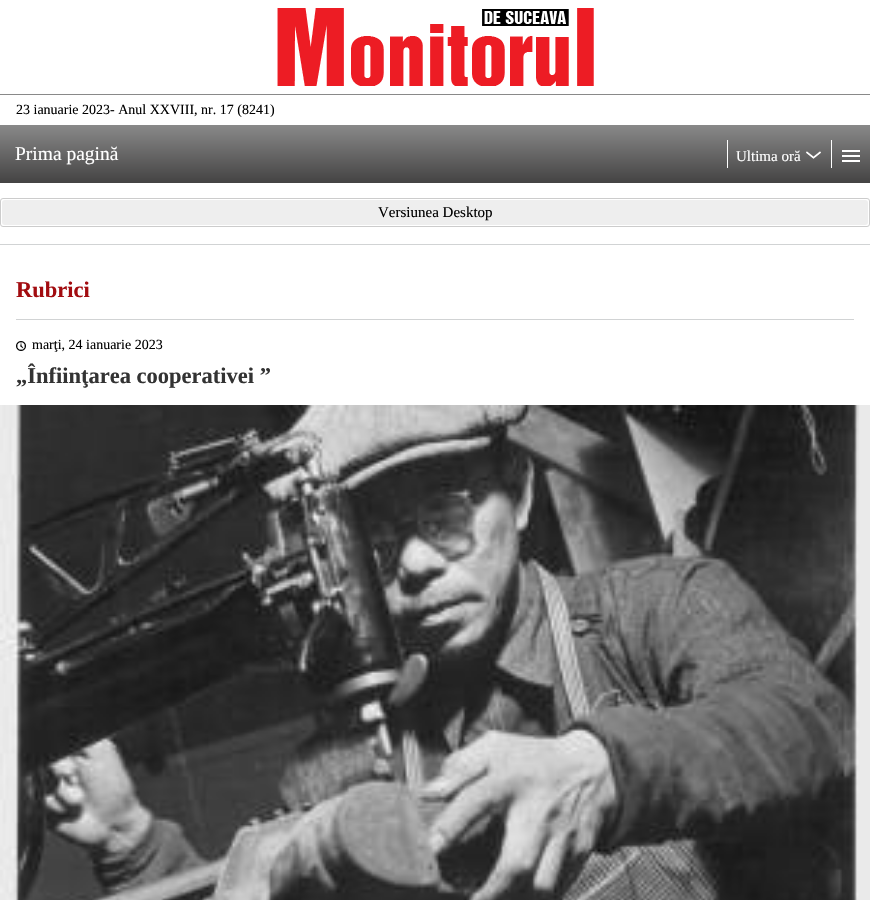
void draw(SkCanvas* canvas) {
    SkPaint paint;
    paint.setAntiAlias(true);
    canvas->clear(0xFFFFFFFF);
    canvas->drawImageRect(SkImages::DeferredFromEncodedData(SkData::MakeFromFileName("img1.png")), SkRect::MakeXYWH(277, 8, 317, 78), SkSamplingOptions());
    paint.setColor(0xFF898989);
    canvas->drawRect(SkRect::MakeXYWH(0, 94, 870, 1), paint);
    SkFont font1(fontMgr->matchFamilyStyle("Liberation Serif", SkFontStyle::Normal()), 14);
    font1.setSubpixel(true);
    paint.setColor(0xFF000000);
    canvas->drawString("23 ianuarie 2023- Anul XXVIII, nr. 17 (8241)", 16, 114, font1, paint);
    {
        const SkColor colors[] = {0xFF898989, 0xFF444343};
        const float stops[] = {0, 1};
        const SkPoint ends[] = {{435, 125}, {435, 183}};
        paint.setShader(SkGradientShader::MakeLinear(ends, colors, stops, 2, SkTileMode::kClamp));
        paint.setAlpha(255);
    }
    canvas->drawRect(SkRect::MakeXYWH(0, 125, 870, 58), paint);
    SkFont font2(fontMgr->matchFamilyStyle("Liberation Serif", SkFontStyle::Normal()), 19.5f);
    font2.setSubpixel(true);
    paint.setShader(nullptr);
    paint.setColor(0xFFFFFFFF);
    canvas->drawString("Prima pagină", 15, 160, font2, paint);
    canvas->drawRect(SkRect::MakeXYWH(727, 140, 1, 28), paint);
    SkFont font3(fontMgr->matchFamilyStyle("Liberation Serif", SkFontStyle::Normal()), 15);
    font3.setSubpixel(true);
    canvas->drawString("Ultima oră", 736, 161, font3, paint);
    canvas->drawImageRect(SkImages::DeferredFromEncodedData(SkData::MakeFromFileName("img2.png")), SkRect::MakeXYWH(806, 151, 15, 8), SkSamplingOptions());
    canvas->drawRect(SkRect::MakeXYWH(831, 140, 1, 28), paint);
    canvas->drawImageRect(SkImages::DeferredFromEncodedData(SkData::MakeFromFileName("img3.png")), SkRect::MakeXYWH(842, 150, 18, 12), SkSamplingOptions());
    paint.setStyle(SkPaint::kStroke_Style);
    paint.setStrokeWidth(1);
    paint.setColor(0xFFCCCCCC);
    canvas->drawRoundRect(SkRect::MakeXYWH(0.5f, 198.5f, 869, 28), 2.5f, 2.5f, paint);
    paint.setStyle(SkPaint::kFill_Style);
    paint.setColor(0xFFEEEEEE);
    canvas->drawRoundRect(SkRect::MakeXYWH(2, 200, 866, 25), 3, 3, paint);
    paint.setColor(0xFF000000);
    canvas->drawString("Versiunea Desktop", 378, 217, font3, paint);
    paint.setColor(0xFFD1D3D4);
    canvas->drawRect(SkRect::MakeXYWH(0, 244, 870, 1), paint);
    canvas->drawRect(SkRect::MakeXYWH(16, 319, 838, 1), paint);
    SkFont font4(fontMgr->matchFamilyStyle("Liberation Serif", SkFontStyle::Bold()), 22.5f);
    font4.setSubpixel(true);
    paint.setColor(0xFFA20C10);
    canvas->drawString("Rubrici", 16, 297, font4, paint);
    canvas->drawImageRect(SkImages::DeferredFromEncodedData(SkData::MakeFromFileName("img4.png")), SkRect::MakeXYWH(16, 341, 10, 10), SkSamplingOptions());
    paint.setColor(0xFF000000);
    canvas->drawString("marţi, 24 ianuarie 2023", 32, 349, font1, paint);
    paint.setColor(0xFF333333);
    canvas->drawString("„Înfiinţarea cooperativei ”", 16, 383, font4, paint);
    canvas->drawImageRect(SkImages::DeferredFromEncodedData(SkData::MakeFromFileName("img5.png")), SkRect::MakeXYWH(0, 405, 870, 495), SkSamplingOptions());
}
